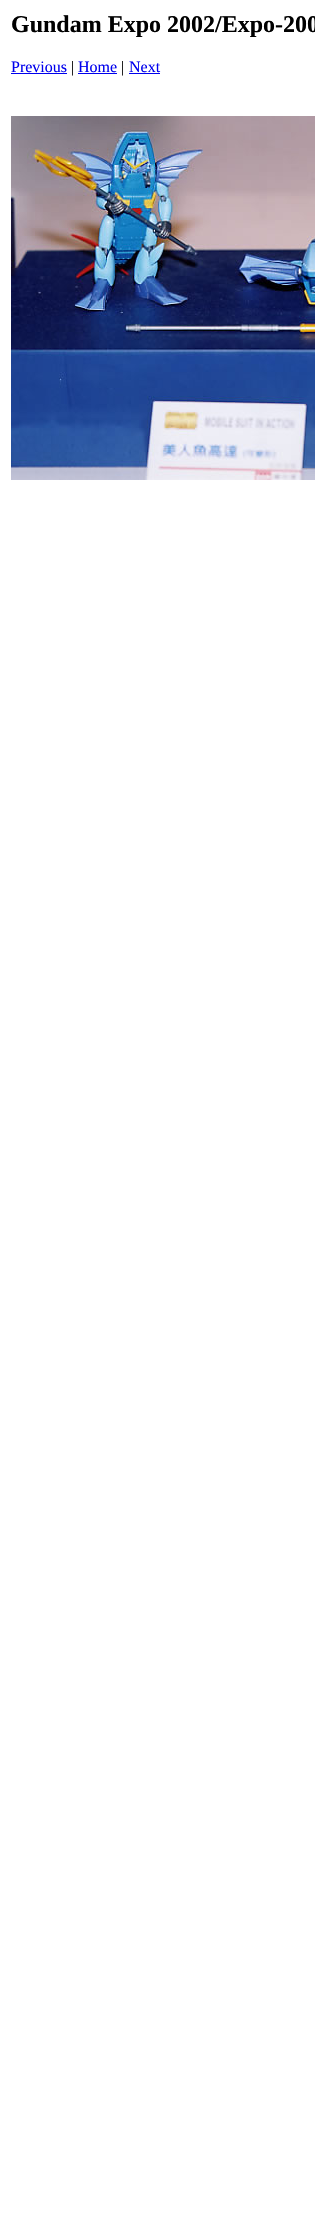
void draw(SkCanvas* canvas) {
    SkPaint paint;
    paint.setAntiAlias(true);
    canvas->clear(0xFFFFFFFF);
    SkFont font1(fontMgr->matchFamilyStyle("Liberation Serif", SkFontStyle::Bold()), 24);
    font1.setSubpixel(true);
    paint.setColor(0xFF000000);
    canvas->drawString("Gundam Expo 2002/Expo-200", 11, 32, font1, paint);
    SkFont font2(fontMgr->matchFamilyStyle("Liberation Serif", SkFontStyle::Normal()), 16);
    font2.setSubpixel(true);
    paint.setColor(0xFF0000EE);
    canvas->drawString("Previous", 11, 72, font2, paint);
    canvas->drawRect(SkRect::MakeXYWH(11, 73, 56, 1), paint);
    paint.setColor(0xFF000000);
    canvas->drawString("|", 71, 72, font2, paint);
    paint.setColor(0xFF0000EE);
    canvas->drawString("Home", 78, 72, font2, paint);
    canvas->drawRect(SkRect::MakeXYWH(78, 73, 39, 1), paint);
    paint.setColor(0xFF000000);
    canvas->drawString("|", 121, 72, font2, paint);
    paint.setColor(0xFF0000EE);
    canvas->drawString("Next", 129, 72, font2, paint);
    canvas->drawRect(SkRect::MakeXYWH(129, 73, 31, 1), paint);
    canvas->drawImageRect(SkImages::DeferredFromEncodedData(SkData::MakeFromFileName("img1.png")), SkRect::MakeXYWH(11, 116, 304, 364), SkSamplingOptions());
}
